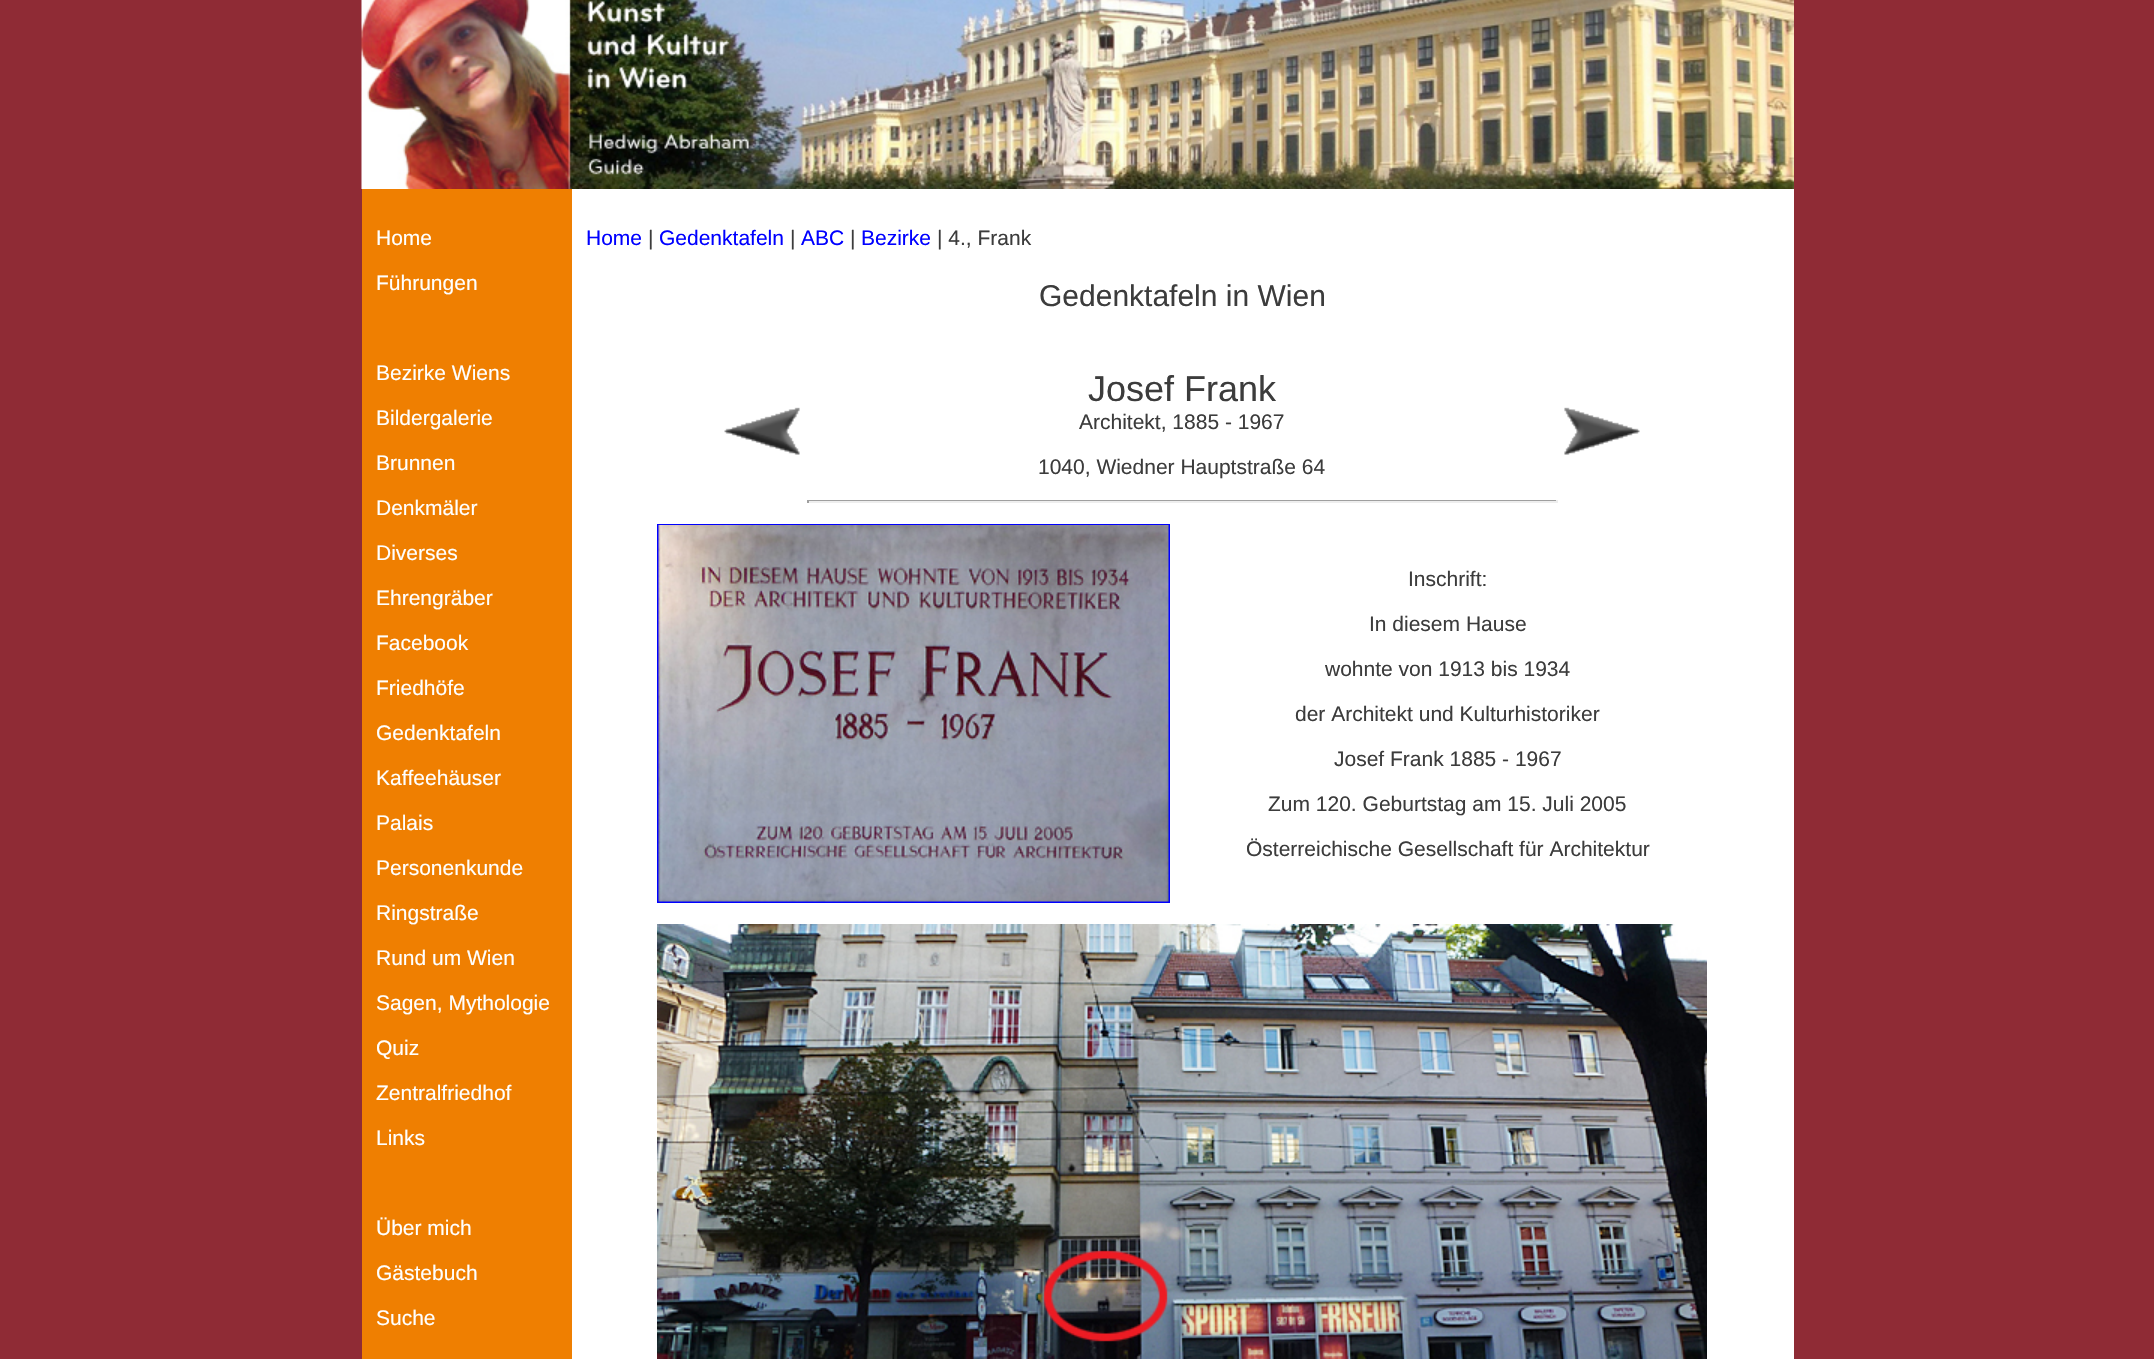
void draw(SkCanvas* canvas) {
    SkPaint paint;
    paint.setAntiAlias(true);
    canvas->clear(0xFF8F2B35);
    canvas->drawImageRect(SkImages::DeferredFromEncodedData(SkData::MakeFromFileName("img1.png")), SkRect::MakeXYWH(361, 0, 1433, 189), SkSamplingOptions());
    paint.setColor(0xFFEF7F01);
    canvas->drawRect(SkRect::MakeXYWH(362, 189, 210, 1170), paint);
    SkFont font1(fontMgr->matchFamilyStyle("Liberation Sans", SkFontStyle::Normal()), 21);
    font1.setSubpixel(true);
    paint.setColor(0xFFFFFFFF);
    canvas->drawString("Home", 376, 245, font1, paint);
    canvas->drawString("Führungen", 376, 290, font1, paint);
    canvas->drawString("Bezirke Wiens", 376, 380, font1, paint);
    canvas->drawString("Bildergalerie", 376, 425, font1, paint);
    canvas->drawString("Brunnen", 376, 470, font1, paint);
    canvas->drawString("Denkmäler", 376, 515, font1, paint);
    canvas->drawString("Diverses", 376, 560, font1, paint);
    canvas->drawString("Ehrengräber", 376, 605, font1, paint);
    canvas->drawString("Facebook", 376, 650, font1, paint);
    canvas->drawString("Friedhöfe", 376, 695, font1, paint);
    canvas->drawString("Gedenktafeln", 376, 740, font1, paint);
    canvas->drawString("Kaffeehäuser", 376, 785, font1, paint);
    canvas->drawString("Palais", 376, 830, font1, paint);
    canvas->drawString("Personenkunde", 376, 875, font1, paint);
    canvas->drawString("Ringstraße", 376, 920, font1, paint);
    canvas->drawString("Rund um Wien", 376, 965, font1, paint);
    canvas->drawString("Sagen, Mythologie", 376, 1010, font1, paint);
    canvas->drawString("Quiz", 376, 1055, font1, paint);
    canvas->drawString("Zentralfriedhof", 376, 1100, font1, paint);
    canvas->drawString("Links", 376, 1145, font1, paint);
    canvas->drawString("Über mich", 376, 1235, font1, paint);
    canvas->drawString("Gästebuch", 376, 1280, font1, paint);
    canvas->drawString("Suche", 376, 1325, font1, paint);
    canvas->drawRect(SkRect::MakeXYWH(572, 189, 1222, 1170), paint);
    paint.setColor(0xFF0000FF);
    canvas->drawString("Home", 586, 245, font1, paint);
    paint.setColor(0xFF3C3C3C);
    canvas->drawString("|", 648, 245, font1, paint);
    paint.setColor(0xFF0000FF);
    canvas->drawString("Gedenktafeln", 659, 245, font1, paint);
    paint.setColor(0xFF3C3C3C);
    canvas->drawString("|", 790, 245, font1, paint);
    paint.setColor(0xFF0000FF);
    canvas->drawString("ABC", 801, 245, font1, paint);
    paint.setColor(0xFF3C3C3C);
    canvas->drawString("|", 850, 245, font1, paint);
    paint.setColor(0xFF0000FF);
    canvas->drawString("Bezirke", 861, 245, font1, paint);
    paint.setColor(0xFF3C3C3C);
    canvas->drawString("| 4., Frank", 937, 245, font1, paint);
    SkFont font2(fontMgr->matchFamilyStyle("Liberation Sans", SkFontStyle::Normal()), 30);
    font2.setSubpixel(true);
    canvas->drawString("Gedenktafeln in Wien", 1039, 306, font2, paint);
    canvas->drawImageRect(SkImages::DeferredFromEncodedData(SkData::MakeFromFileName("img2.png")), SkRect::MakeXYWH(724, 407, 76, 48), SkSamplingOptions());
    SkFont font3(fontMgr->matchFamilyStyle("Liberation Sans", SkFontStyle::Normal()), 36);
    font3.setSubpixel(true);
    canvas->drawString("Josef Frank", 1088, 401, font3, paint);
    canvas->drawString("Architekt, 1885 - 1967", 1079, 429, font1, paint);
    canvas->drawString("1040, Wiedner Hauptstraße 64", 1038, 474, font1, paint);
    paint.setColor(0xFF9F9F9F);
    canvas->drawRect(SkRect::MakeXYWH(807, 500, 750, 1), paint);
    paint.setColor(0xFFEEEEEE);
    canvas->drawRect(SkRect::MakeXYWH(1556, 500, 2, 3), paint);
    canvas->drawRect(SkRect::MakeXYWH(807, 501, 750, 2), paint);
    paint.setColor(0xFF9F9F9F);
    canvas->drawRect(SkRect::MakeXYWH(807, 500, 2, 3), paint);
    canvas->drawImageRect(SkImages::DeferredFromEncodedData(SkData::MakeFromFileName("img3.png")), SkRect::MakeXYWH(1564, 407, 76, 48), SkSamplingOptions());
    paint.setStyle(SkPaint::kStroke_Style);
    paint.setStrokeWidth(2);
    paint.setColor(0xFF0000FF);
    canvas->drawRect(SkRect::MakeXYWH(658, 525, 511, 377), paint);
    canvas->drawImageRect(SkImages::DeferredFromEncodedData(SkData::MakeFromFileName("img4.png")), SkRect::MakeXYWH(658, 525, 511, 377), SkSamplingOptions());
    paint.setStyle(SkPaint::kFill_Style);
    paint.setColor(0xFF3C3C3C);
    canvas->drawString("Inschrift:", 1408, 586, font1, paint);
    canvas->drawString("In diesem Hause", 1369, 631, font1, paint);
    canvas->drawString("wohnte von 1913 bis 1934", 1325, 676, font1, paint);
    canvas->drawString("der Architekt und Kulturhistoriker", 1295, 721, font1, paint);
    canvas->drawString("Josef Frank 1885 - 1967", 1334, 766, font1, paint);
    canvas->drawString("Zum 120. Geburtstag am 15. Juli 2005", 1268, 811, font1, paint);
    canvas->drawString("Österreichische Gesellschaft für Architektur", 1246, 856, font1, paint);
    canvas->drawImageRect(SkImages::DeferredFromEncodedData(SkData::MakeFromFileName("img5.png")), SkRect::MakeXYWH(657, 924, 1050, 435), SkSamplingOptions());
}
